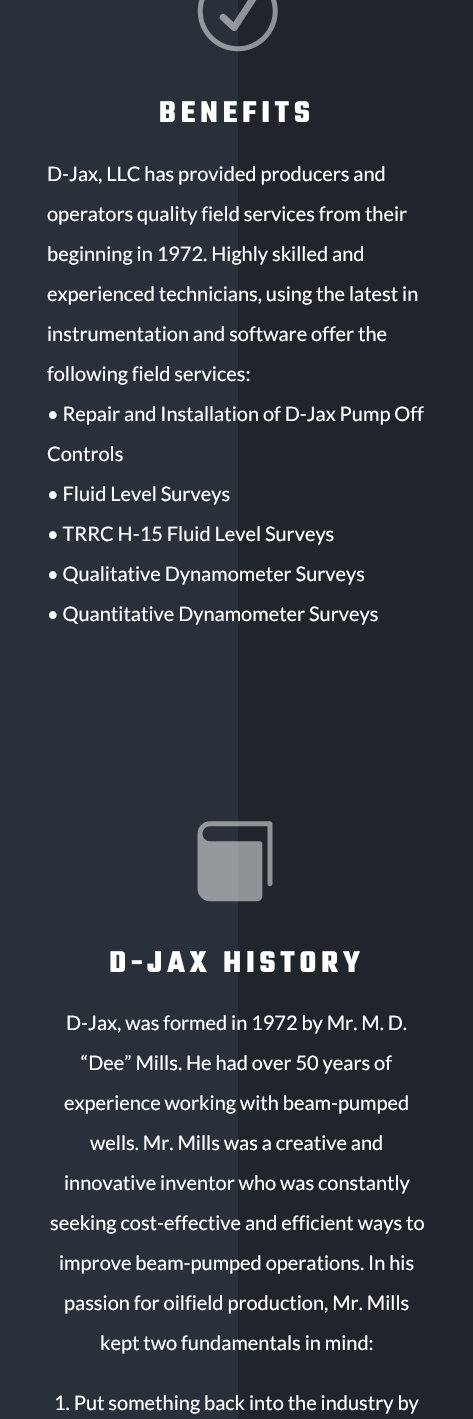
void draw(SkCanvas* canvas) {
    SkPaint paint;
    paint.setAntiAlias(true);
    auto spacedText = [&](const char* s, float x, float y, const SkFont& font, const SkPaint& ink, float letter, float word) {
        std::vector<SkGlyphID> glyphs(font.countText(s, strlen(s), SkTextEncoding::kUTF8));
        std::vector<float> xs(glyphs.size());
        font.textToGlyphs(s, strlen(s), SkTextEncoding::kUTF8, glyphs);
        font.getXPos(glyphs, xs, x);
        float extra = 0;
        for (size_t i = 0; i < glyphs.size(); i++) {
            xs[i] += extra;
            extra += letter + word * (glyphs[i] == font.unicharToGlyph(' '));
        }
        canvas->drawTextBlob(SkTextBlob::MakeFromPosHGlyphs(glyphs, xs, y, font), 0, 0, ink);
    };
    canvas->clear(0xFF2A3039);
    paint.setColor(0xFF20252C);
    canvas->drawRect(SkRect::MakeXYWH(238, 0, 235, 1419), paint);
    canvas->drawImageRect(SkImages::DeferredFromEncodedData(SkData::MakeFromFileName("img1.png")), SkRect::MakeXYWH(197, 0, 81, 52), SkSamplingOptions());
    SkFont font1(fontMgr->matchFamilyStyle("Teko", SkFontStyle(300, SkFontStyle::kNormal_Width, SkFontStyle::kUpright_Slant)), 32.5f);
    font1.setSubpixel(true);
    paint.setColor(0xFFFFFFFF);
    spacedText("BENEFITS", 159, 122, font1, paint, 5, 0);
    SkFont font2(fontMgr->matchFamilyStyle("Lato", SkFontStyle::Normal()), 20);
    font2.setSubpixel(true);
    canvas->drawString("D-Jax, LLC has provided producers and", 47, 181, font2, paint);
    canvas->drawString("operators quality field services from their", 47, 221, font2, paint);
    canvas->drawString("beginning in 1972. Highly skilled and", 47, 261, font2, paint);
    canvas->drawString("experienced technicians, using the latest in", 47, 301, font2, paint);
    canvas->drawString("instrumentation and software offer the", 47, 341, font2, paint);
    canvas->drawString("following field services:", 47, 381, font2, paint);
    canvas->drawString("• Repair and Installation of D-Jax Pump Off", 47, 421, font2, paint);
    canvas->drawString("Controls", 47, 461, font2, paint);
    canvas->drawString("• Fluid Level Surveys", 47, 501, font2, paint);
    canvas->drawString("• TRRC H-15 Fluid Level Surveys", 47, 541, font2, paint);
    canvas->drawString("• Qualitative Dynamometer Surveys", 47, 581, font2, paint);
    canvas->drawString("• Quantitative Dynamometer Surveys", 47, 621, font2, paint);
    canvas->drawImageRect(SkImages::DeferredFromEncodedData(SkData::MakeFromFileName("img2.png")), SkRect::MakeXYWH(197, 821, 76, 81), SkSamplingOptions());
    spacedText("D-JAX HISTORY", 109, 972, font1, paint, 5, 0);
    canvas->drawString("D-Jax, was formed in 1972 by Mr. M. D.", 66, 1030, font2, paint);
    canvas->drawString("“Dee” Mills. He had over 50 years of", 81, 1070, font2, paint);
    canvas->drawString("experience working with beam-pumped", 64, 1110, font2, paint);
    canvas->drawString("wells. Mr. Mills was a creative and", 90, 1150, font2, paint);
    canvas->drawString("innovative inventor who was constantly", 64, 1190, font2, paint);
    canvas->drawString("seeking cost-effective and efficient ways to", 50, 1230, font2, paint);
    canvas->drawString("improve beam-pumped operations. In his", 59, 1270, font2, paint);
    canvas->drawString("passion for oilfield production, Mr. Mills", 64, 1310, font2, paint);
    canvas->drawString("kept two fundamentals in mind:", 100, 1350, font2, paint);
    canvas->drawString("1. Put something back into the industry by", 54, 1410, font2, paint);
}
